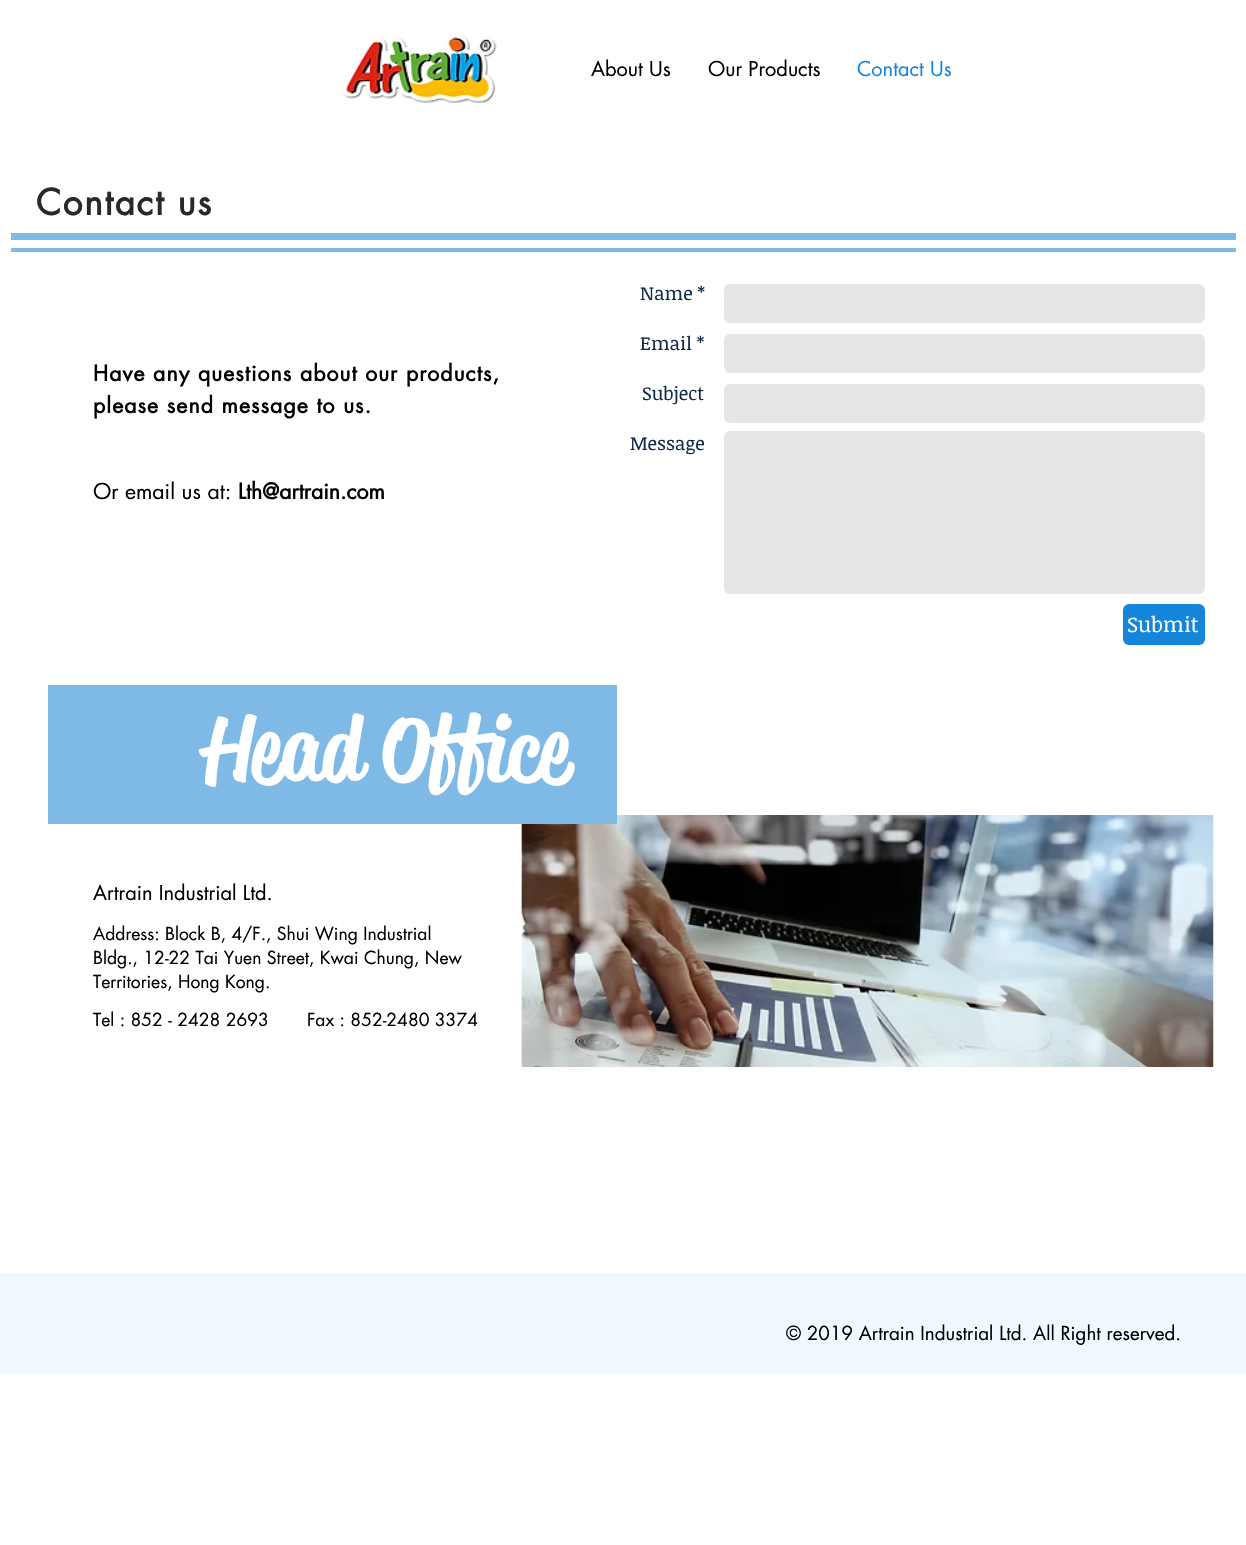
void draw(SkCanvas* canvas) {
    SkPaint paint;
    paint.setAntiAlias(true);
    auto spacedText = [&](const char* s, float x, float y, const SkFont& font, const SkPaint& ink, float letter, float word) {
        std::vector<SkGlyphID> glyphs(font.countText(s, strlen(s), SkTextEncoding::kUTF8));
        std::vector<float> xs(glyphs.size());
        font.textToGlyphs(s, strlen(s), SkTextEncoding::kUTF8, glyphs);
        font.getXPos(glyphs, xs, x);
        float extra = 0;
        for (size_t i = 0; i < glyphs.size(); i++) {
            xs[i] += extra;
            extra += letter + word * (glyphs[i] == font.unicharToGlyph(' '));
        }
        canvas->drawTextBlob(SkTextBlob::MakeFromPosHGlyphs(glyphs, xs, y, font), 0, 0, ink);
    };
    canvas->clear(0xFFFFFFFF);
    canvas->drawImageRect(SkImages::DeferredFromEncodedData(SkData::MakeFromFileName("img1.png")), SkRect::MakeXYWH(342, 34, 155, 69), SkSamplingOptions());
    SkFont font1(fontMgr->matchFamilyStyle("futura", SkFontStyle::Normal()), 20);
    font1.setSubpixel(true);
    paint.setColor(0xFF000000);
    canvas->drawString("About Us", 591, 76, font1, paint);
    canvas->drawString("Our Products", 708, 76, font1, paint);
    paint.setColor(0xFF1585DB);
    canvas->drawString("Contact Us", 857, 76, font1, paint);
    SkFont font2(fontMgr->matchFamilyStyle("futura", SkFontStyle::Bold()), 35);
    font2.setSubpixel(true);
    paint.setColor(0xFF292929);
    spacedText("Contact us", 36, 215, font2, paint, 1.75f, 0);
    paint.setColor(0xFF7FBAE7);
    canvas->drawRect(SkRect::MakeXYWH(11, 233, 1225, 7), paint);
    canvas->drawRect(SkRect::MakeXYWH(11, 248, 1225, 4), paint);
    SkFont font3(fontMgr->matchFamilyStyle("futura", SkFontStyle::Bold()), 21.25f);
    font3.setSubpixel(true);
    paint.setColor(0xFF000000);
    spacedText("Have any questions about our products,", 93, 381, font3, paint, 1.05f, 0);
    spacedText("please send message to us.", 93, 413, font3, paint, 1.05f, 0);
    SkFont font4(fontMgr->matchFamilyStyle("Noticia Text", SkFontStyle::Normal()), 18.75f);
    font4.setSubpixel(true);
    paint.setColor(0xFF112A4B);
    canvas->drawString("Name *", 640, 300, font4, paint);
    paint.setColor(0xFFE6E6E6);
    canvas->drawRoundRect(SkRect::MakeXYWH(724, 284, 481, 39), 6, 6, paint);
    paint.setColor(0xFF112A4B);
    canvas->drawString("Email *", 640, 350, font4, paint);
    paint.setColor(0xFFE6E6E6);
    canvas->drawRoundRect(SkRect::MakeXYWH(724, 334, 481, 39), 6, 6, paint);
    paint.setColor(0xFF112A4B);
    canvas->drawString("Subject", 642, 400, font4, paint);
    paint.setColor(0xFFE6E6E6);
    canvas->drawRoundRect(SkRect::MakeXYWH(724, 384, 481, 39), 6, 6, paint);
    paint.setColor(0xFF112A4B);
    canvas->drawString("Message", 630, 450, font4, paint);
    paint.setColor(0xFFE6E6E6);
    canvas->drawRoundRect(SkRect::MakeXYWH(724, 431, 481, 163), 6, 6, paint);
    paint.setColor(0xFF1585DB);
    canvas->drawRoundRect(SkRect::MakeXYWH(1123, 604, 82, 41), 6, 6, paint);
    SkFont font5(fontMgr->matchFamilyStyle("Noticia Text", SkFontStyle::Normal()), 21.25f);
    font5.setSubpixel(true);
    paint.setColor(0xFFFFFFFF);
    canvas->drawString("Submit", 1127, 632, font5, paint);
    SkFont font6(fontMgr->matchFamilyStyle("futura", SkFontStyle::Normal()), 21.25f);
    font6.setSubpixel(true);
    paint.setColor(0xFF000000);
    canvas->drawString("Or email us at:", 93, 499, font6, paint);
    canvas->drawString("Lth@artrain.com", 238, 499, font3, paint);
    canvas->drawImageRect(SkImages::DeferredFromEncodedData(SkData::MakeFromFileName("img2.png")), SkRect::MakeXYWH(521, 815, 693, 253), SkSamplingOptions());
    paint.setColor(0xFF7FBAE7);
    canvas->drawRect(SkRect::MakeXYWH(48, 685, 569, 139), paint);
    SkFont font7(fontMgr->matchFamilyStyle("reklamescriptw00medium", SkFontStyle(500, SkFontStyle::kNormal_Width, SkFontStyle::kUpright_Slant)), 87.5f);
    font7.setSubpixel(true);
    paint.setColor(0xFFFFFFFF);
    canvas->drawString("Head Office", 203, 779, font7, paint);
    paint.setColor(0xFF000000);
    canvas->drawString("Artrain Industrial Ltd.", 93, 900, font1, paint);
    SkFont font8(fontMgr->matchFamilyStyle("futura", SkFontStyle::Normal()), 17.5f);
    font8.setSubpixel(true);
    canvas->drawString("Address: Block B, 4/F., Shui Wing Industrial", 93, 940, font8, paint);
    canvas->drawString("Bldg., 12-22 Tai Yuen Street, Kwai Chung, New", 93, 964, font8, paint);
    canvas->drawString("Territories, Hong Kong.", 93, 988, font8, paint);
    canvas->drawString("Tel : 852 - 2428 2693", 93, 1026, font8, paint);
    canvas->drawString("Fax : 852-2480 3374", 307, 1026, font8, paint);
    paint.setColor(0xFFF0F9FF);
    canvas->drawRect(SkRect::MakeXYWH(0, 1273, 1246, 100), paint);
    SkFont font9(fontMgr->matchFamilyStyle("futura", SkFontStyle::Normal()), 18.75f);
    font9.setSubpixel(true);
    paint.setColor(0xFF000000);
    canvas->drawString("© 2019 Artrain Industrial Ltd. All Right reserved.", 786, 1340, font9, paint);
}
